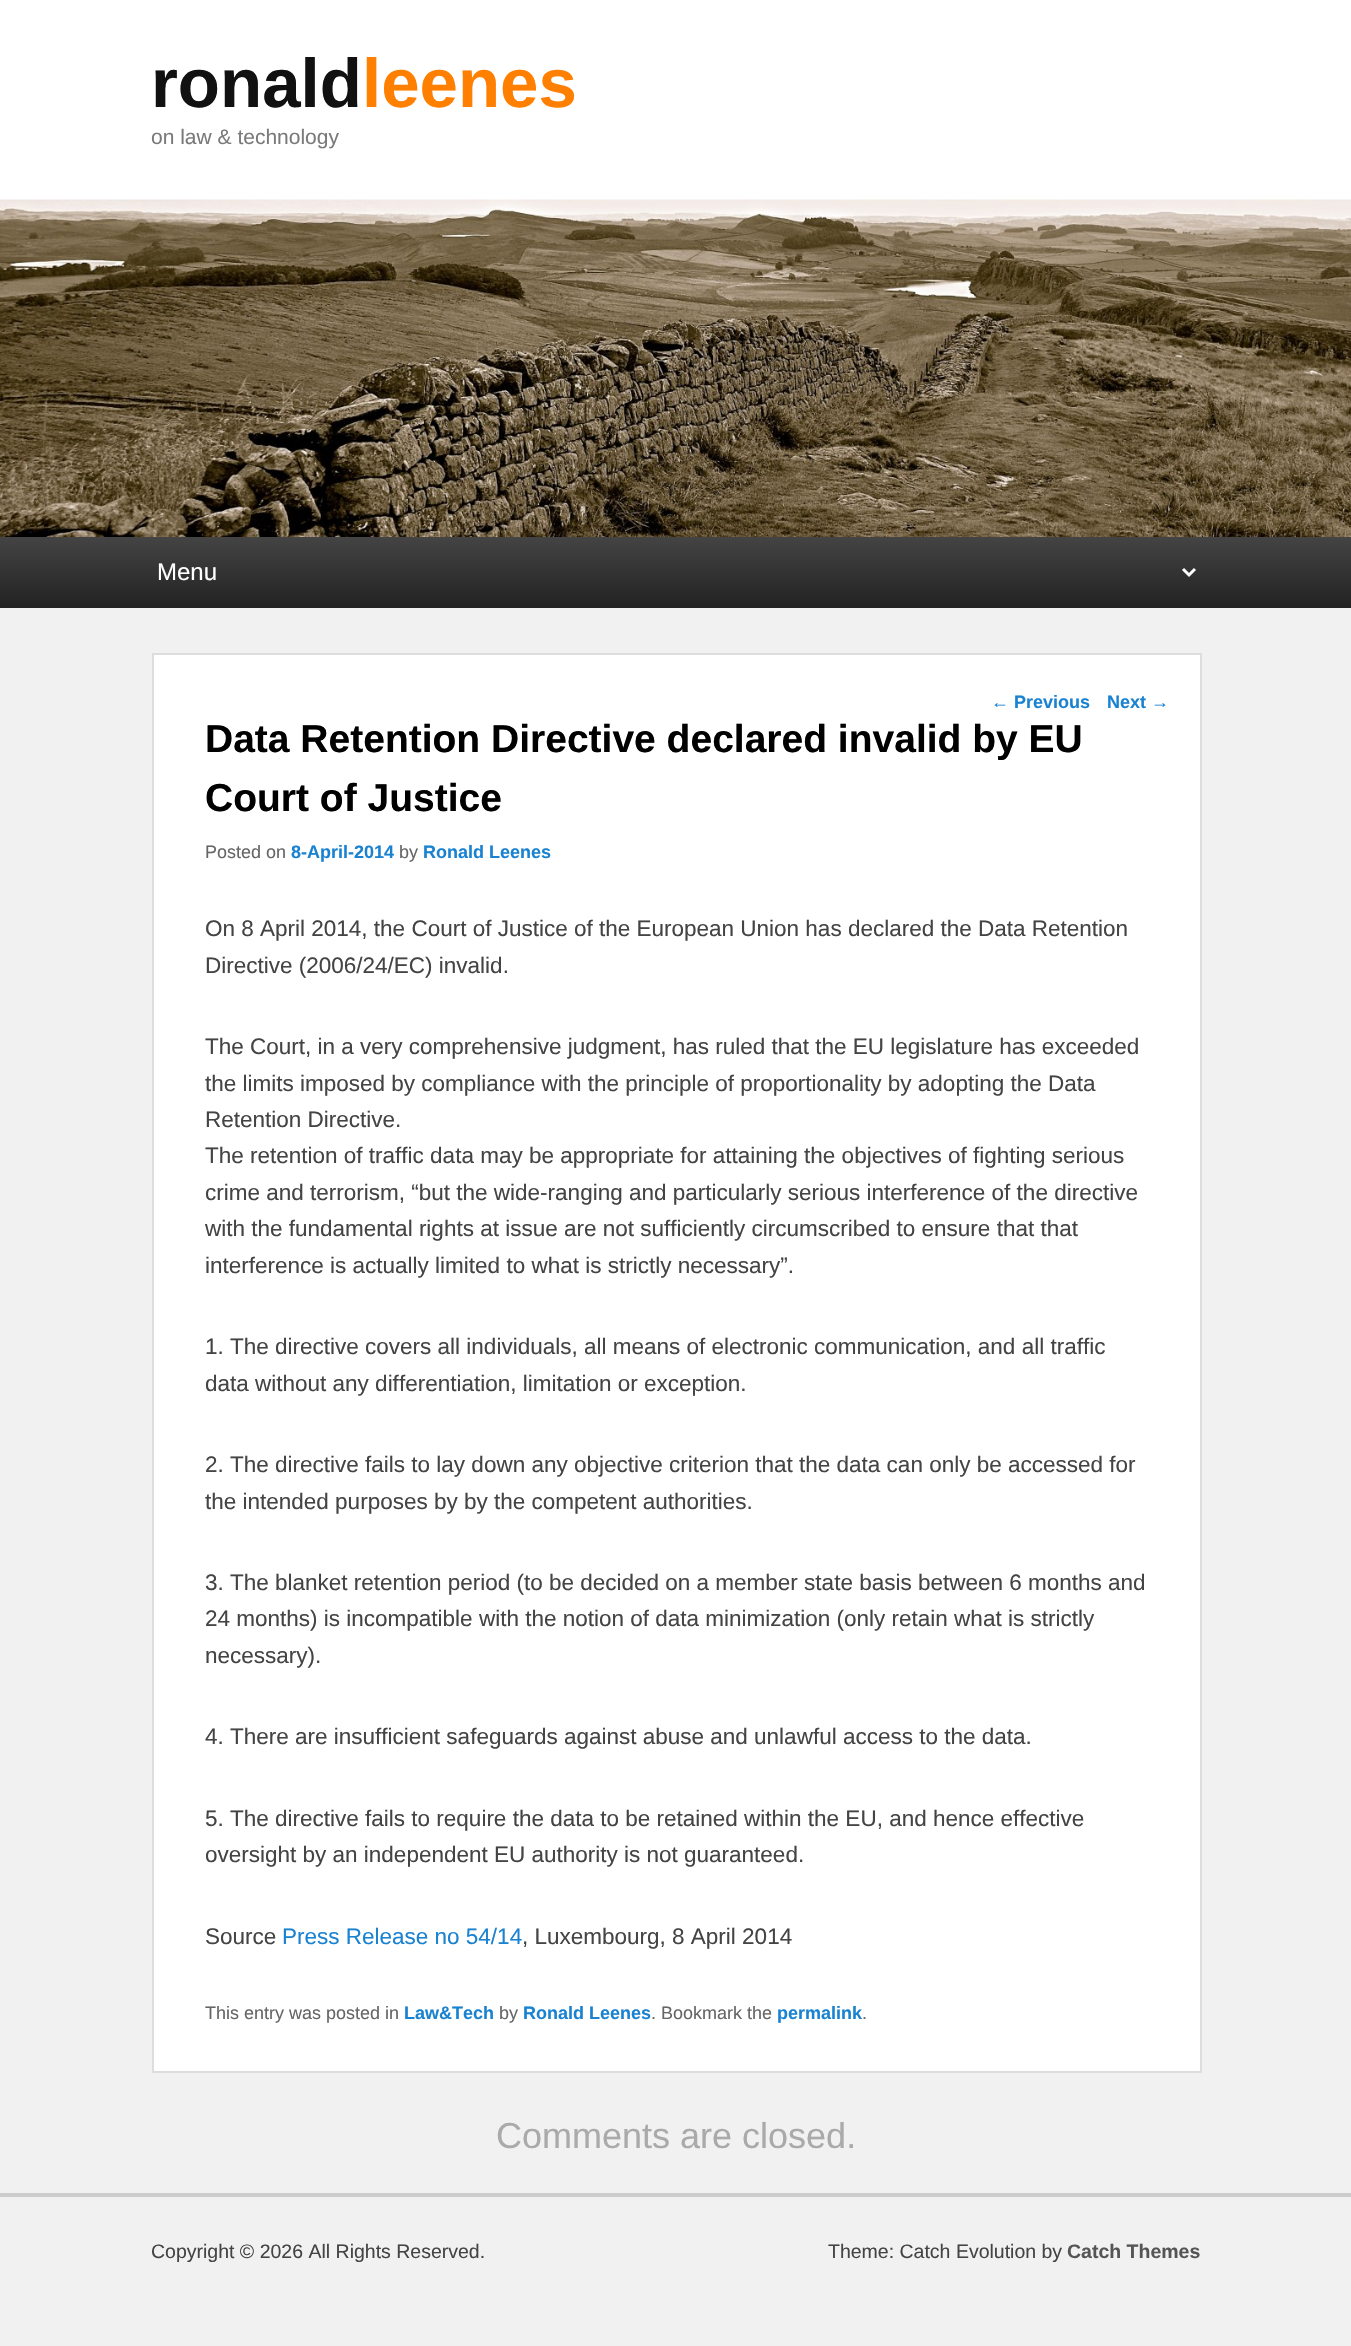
void draw(SkCanvas* canvas) {
    SkPaint paint;
    paint.setAntiAlias(true);
    canvas->clear(0xFFF1F1F1);
    paint.setColor(0xFFFFFFFF);
    canvas->drawRect(SkRect::MakeXYWH(0, 0, 1351, 200), paint);
    SkFont font1(fontMgr->matchFamilyStyle("Liberation Sans", SkFontStyle::Bold()), 69);
    font1.setSubpixel(true);
    paint.setColor(0xFF111111);
    canvas->drawString("ronald", 151, 107, font1, paint);
    paint.setColor(0xFFFF8000);
    canvas->drawString("leenes", 362, 107, font1, paint);
    SkFont font2(fontMgr->matchFamilyStyle("Liberation Sans", SkFontStyle::Normal()), 21);
    font2.setSubpixel(true);
    paint.setColor(0xFF7A7A7A);
    canvas->drawString("on law & technology", 151, 144, font2, paint);
    canvas->drawImageRect(SkImages::DeferredFromEncodedData(SkData::MakeFromFileName("img1.png")), SkRect::MakeXYWH(0, 199, 1351, 338), SkSamplingOptions());
    {
        const SkColor colors[] = {0xFF444444, 0xFF222222};
        const float stops[] = {0, 1};
        const SkPoint ends[] = {{676, 537}, {676, 608}};
        paint.setShader(SkGradientShader::MakeLinear(ends, colors, stops, 2, SkTileMode::kClamp));
        paint.setAlpha(255);
    }
    canvas->drawRect(SkRect::MakeXYWH(0, 537, 1351, 71), paint);
    paint.setStyle(SkPaint::kStroke_Style);
    paint.setStrokeWidth(3);
    paint.setShader(nullptr);
    paint.setColor(0xFFFFFFFF);
    canvas->drawPath(SkPathBuilder().moveTo(1183, 569).lineTo(1189, 575).lineTo(1195, 569).detach(), paint);
    SkFont font3(fontMgr->matchFamilyStyle("Liberation Sans", SkFontStyle::Normal()), 24);
    font3.setSubpixel(true);
    paint.setStyle(SkPaint::kFill_Style);
    canvas->drawString("Menu", 157, 580, font3, paint);
    canvas->drawRect(SkRect::MakeXYWH(153, 654, 1048, 1418), paint);
    paint.setStyle(SkPaint::kStroke_Style);
    paint.setStrokeWidth(2);
    paint.setColor(0xFFDDDDDD);
    canvas->drawRect(SkRect::MakeXYWH(153, 654, 1048, 1418), paint);
    SkFont font4(fontMgr->matchFamilyStyle("Liberation Sans", SkFontStyle::Normal()), 18);
    font4.setSubpixel(true);
    paint.setStyle(SkPaint::kFill_Style);
    paint.setColor(0xFF1982D1);
    canvas->drawString("←", 991, 708, font4, paint);
    SkFont font5(fontMgr->matchFamilyStyle("Liberation Sans", SkFontStyle::Bold()), 18);
    font5.setSubpixel(true);
    canvas->drawString("Previous", 1014, 708, font5, paint);
    canvas->drawString("Next", 1107, 708, font5, paint);
    canvas->drawString("→", 1151, 708, font4, paint);
    SkFont font6(fontMgr->matchFamilyStyle("Liberation Sans", SkFontStyle::Bold()), 39);
    font6.setSubpixel(true);
    paint.setColor(0xFF000000);
    canvas->drawString("Data Retention Directive declared invalid by EU", 205, 752, font6, paint);
    canvas->drawString("Court of Justice", 205, 811, font6, paint);
    paint.setColor(0xFF666666);
    canvas->drawString("Posted on", 205, 858, font4, paint);
    paint.setColor(0xFF1982D1);
    canvas->drawString("8-April-2014", 291, 858, font5, paint);
    paint.setColor(0xFF666666);
    canvas->drawString("by", 399, 858, font4, paint);
    paint.setColor(0xFF1982D1);
    canvas->drawString("Ronald Leenes", 423, 858, font5, paint);
    SkFont font7(fontMgr->matchFamilyStyle("Liberation Sans", SkFontStyle::Normal()), 22.5f);
    font7.setSubpixel(true);
    paint.setColor(0xFF444444);
    canvas->drawString("On 8 April 2014, the Court of Justice of the European Union has declared the Data Retention", 205, 936, font7, paint);
    canvas->drawString("Directive (2006/24/EC) invalid.", 205, 973, font7, paint);
    canvas->drawString("The Court, in a very comprehensive judgment, has ruled that the EU legislature has exceeded", 205, 1054, font7, paint);
    canvas->drawString("the limits imposed by compliance with the principle of proportionality by adopting the Data", 205, 1091, font7, paint);
    canvas->drawString("Retention Directive.", 205, 1127, font7, paint);
    canvas->drawString("The retention of traffic data may be appropriate for attaining the objectives of fighting serious", 205, 1163, font7, paint);
    canvas->drawString("crime and terrorism, “but the wide-ranging and particularly serious interference of the directive", 205, 1200, font7, paint);
    canvas->drawString("with the fundamental rights at issue are not sufficiently circumscribed to ensure that that", 205, 1236, font7, paint);
    canvas->drawString("interference is actually limited to what is strictly necessary”.", 205, 1273, font7, paint);
    canvas->drawString("1. The directive covers all individuals, all means of electronic communication, and all traffic", 205, 1354, font7, paint);
    canvas->drawString("data without any differentiation, limitation or exception.", 205, 1391, font7, paint);
    canvas->drawString("2. The directive fails to lay down any objective criterion that the data can only be accessed for", 205, 1472, font7, paint);
    canvas->drawString("the intended purposes by by the competent authorities.", 205, 1509, font7, paint);
    canvas->drawString("3. The blanket retention period (to be decided on a member state basis between 6 months and", 205, 1590, font7, paint);
    canvas->drawString("24 months) is incompatible with the notion of data minimization (only retain what is strictly", 205, 1626, font7, paint);
    canvas->drawString("necessary).", 205, 1663, font7, paint);
    canvas->drawString("4. There are insufficient safeguards against abuse and unlawful access to the data.", 205, 1744, font7, paint);
    canvas->drawString("5. The directive fails to require the data to be retained within the EU, and hence effective", 205, 1826, font7, paint);
    canvas->drawString("oversight by an independent EU authority is not guaranteed.", 205, 1862, font7, paint);
    canvas->drawString("Source", 205, 1944, font7, paint);
    paint.setColor(0xFF1982D1);
    canvas->drawString("Press Release no 54/14", 282, 1944, font7, paint);
    paint.setColor(0xFF444444);
    canvas->drawString(", Luxembourg, 8 April 2014", 522, 1944, font7, paint);
    paint.setColor(0xFF666666);
    canvas->drawString("This entry was posted in", 205, 2019, font4, paint);
    paint.setColor(0xFF1982D1);
    canvas->drawString("Law&Tech", 404, 2019, font5, paint);
    paint.setColor(0xFF666666);
    canvas->drawString("by", 499, 2019, font4, paint);
    paint.setColor(0xFF1982D1);
    canvas->drawString("Ronald Leenes", 523, 2019, font5, paint);
    paint.setColor(0xFF666666);
    canvas->drawString(". Bookmark the", 651, 2019, font4, paint);
    paint.setColor(0xFF1982D1);
    canvas->drawString("permalink", 777, 2019, font5, paint);
    paint.setColor(0xFF666666);
    canvas->drawString(".", 862, 2019, font4, paint);
    SkFont font8(fontMgr->matchFamilyStyle("Liberation Sans", SkFontStyle::Normal()), 36);
    font8.setSubpixel(true);
    paint.setColor(0xFFAAAAAA);
    canvas->drawString("Comments are closed.", 496, 2148, font8, paint);
    paint.setColor(0xFFCCCCCC);
    canvas->drawRect(SkRect::MakeXYWH(0, 2193, 1351, 4), paint);
    SkFont font9(fontMgr->matchFamilyStyle("Liberation Sans", SkFontStyle::Normal()), 19.5f);
    font9.setSubpixel(true);
    paint.setColor(0xFF444444);
    canvas->drawString("Copyright © 2026 All Rights Reserved.", 151, 2258, font9, paint);
    canvas->drawString("Theme: Catch Evolution by", 828, 2258, font9, paint);
    SkFont font10(fontMgr->matchFamilyStyle("Liberation Sans", SkFontStyle::Bold()), 19.5f);
    font10.setSubpixel(true);
    paint.setColor(0xFF555555);
    canvas->drawString("Catch Themes", 1067, 2258, font10, paint);
}
